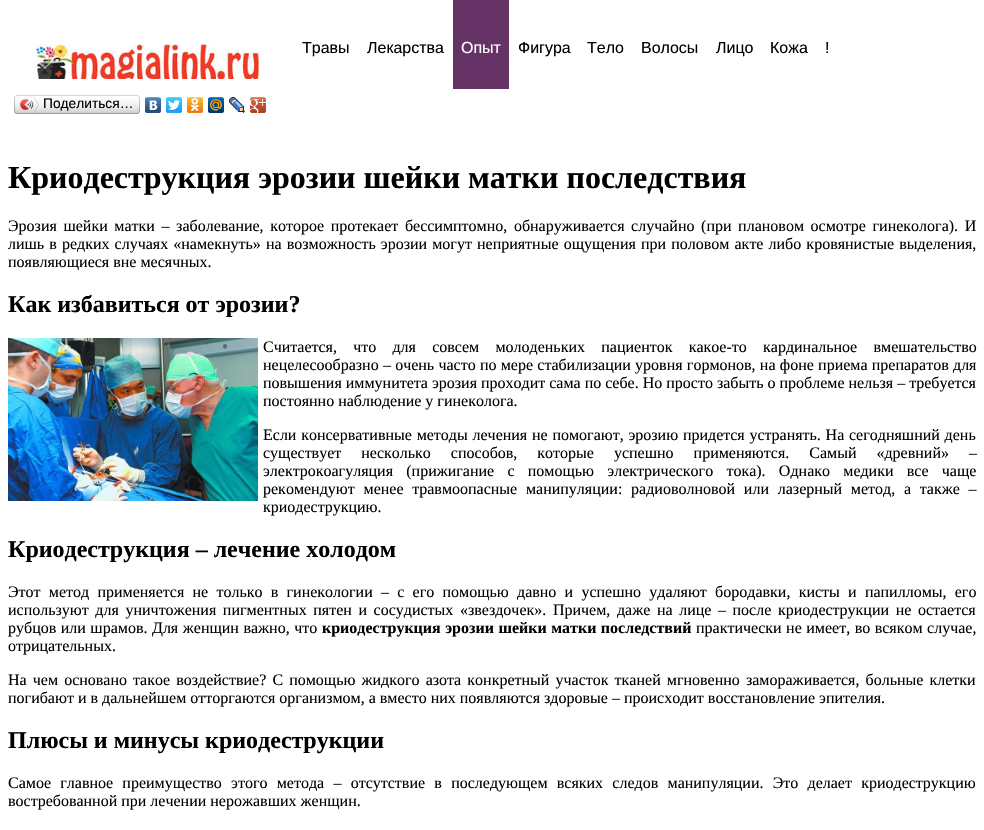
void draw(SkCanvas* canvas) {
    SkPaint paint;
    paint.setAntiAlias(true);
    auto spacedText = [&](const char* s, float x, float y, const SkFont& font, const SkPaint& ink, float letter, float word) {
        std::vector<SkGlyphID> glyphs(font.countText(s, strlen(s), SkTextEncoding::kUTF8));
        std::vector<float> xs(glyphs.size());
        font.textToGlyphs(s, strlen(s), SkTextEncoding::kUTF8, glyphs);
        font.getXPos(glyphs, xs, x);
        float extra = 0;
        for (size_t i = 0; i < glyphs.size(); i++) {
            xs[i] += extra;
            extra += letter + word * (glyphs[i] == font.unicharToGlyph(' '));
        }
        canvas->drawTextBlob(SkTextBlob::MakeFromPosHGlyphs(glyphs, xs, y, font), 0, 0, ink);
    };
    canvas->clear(0xFFFFFFFF);
    canvas->drawImageRect(SkImages::DeferredFromEncodedData(SkData::MakeFromFileName("img1.png")), SkRect::MakeXYWH(33, 44, 228, 35), SkSamplingOptions());
    SkFont font1(fontMgr->matchFamilyStyle("Liberation Sans", SkFontStyle::Normal()), 16);
    font1.setSubpixel(true);
    paint.setColor(0xFF000000);
    canvas->drawString("Травы", 302, 53, font1, paint);
    canvas->drawString("Лекарства", 367, 53, font1, paint);
    paint.setColor(0xFF663366);
    canvas->drawRect(SkRect::MakeXYWH(453, 0, 56, 89), paint);
    paint.setColor(0xFFFFFFFF);
    canvas->drawString("Опыт", 461, 53, font1, paint);
    paint.setColor(0xFF000000);
    canvas->drawString("Фигура", 518, 53, font1, paint);
    canvas->drawString("Тело", 587, 53, font1, paint);
    canvas->drawString("Волосы", 641, 53, font1, paint);
    canvas->drawString("Лицо", 716, 53, font1, paint);
    canvas->drawString("Кожа", 770, 53, font1, paint);
    canvas->drawString("!", 825, 53, font1, paint);
    canvas->drawImageRect(SkImages::DeferredFromEncodedData(SkData::MakeFromFileName("img2.png")), SkRect::MakeXYWH(17, 95, 120, 19), SkSamplingOptions());
    canvas->drawImageRect(SkImages::DeferredFromEncodedData(SkData::MakeFromFileName("img3.png")), SkRect::MakeXYWH(14, 95, 3, 19), SkSamplingOptions());
    canvas->drawImageRect(SkImages::DeferredFromEncodedData(SkData::MakeFromFileName("img4.png")), SkRect::MakeXYWH(20, 96, 20, 17), SkSamplingOptions());
    SkFont font2(fontMgr->matchFamilyStyle("Liberation Sans", SkFontStyle::Normal()), 13.75f);
    font2.setSubpixel(true);
    canvas->drawString("Поделиться…", 43, 108, font2, paint);
    canvas->drawImageRect(SkImages::DeferredFromEncodedData(SkData::MakeFromFileName("img5.png")), SkRect::MakeXYWH(137, 95, 3, 19), SkSamplingOptions());
    canvas->drawImageRect(SkImages::DeferredFromEncodedData(SkData::MakeFromFileName("img6.png")), SkRect::MakeXYWH(145, 97, 16, 16), SkSamplingOptions());
    canvas->drawImageRect(SkImages::DeferredFromEncodedData(SkData::MakeFromFileName("img7.png")), SkRect::MakeXYWH(166, 97, 16, 16), SkSamplingOptions());
    canvas->drawImageRect(SkImages::DeferredFromEncodedData(SkData::MakeFromFileName("img8.png")), SkRect::MakeXYWH(187, 97, 16, 16), SkSamplingOptions());
    canvas->drawImageRect(SkImages::DeferredFromEncodedData(SkData::MakeFromFileName("img9.png")), SkRect::MakeXYWH(208, 97, 16, 16), SkSamplingOptions());
    canvas->drawImageRect(SkImages::DeferredFromEncodedData(SkData::MakeFromFileName("img10.png")), SkRect::MakeXYWH(229, 97, 16, 16), SkSamplingOptions());
    canvas->drawImageRect(SkImages::DeferredFromEncodedData(SkData::MakeFromFileName("img11.png")), SkRect::MakeXYWH(250, 97, 16, 16), SkSamplingOptions());
    SkFont font3(fontMgr->matchFamilyStyle("Liberation Serif", SkFontStyle::Bold()), 32);
    font3.setSubpixel(true);
    canvas->drawString("Криодеструкция эрозии шейки матки последствия", 8, 188, font3, paint);
    SkFont font4(fontMgr->matchFamilyStyle("Liberation Serif", SkFontStyle::Normal()), 16);
    font4.setSubpixel(true);
    spacedText("Эрозия шейки матки – заболевание, которое протекает бессимптомно, обнаруживается случайно (при плановом осмотре гинеколога). И", 8, 231, font4, paint, 0, 2.6f);
    spacedText("лишь в редких случаях «намекнуть» на возможность эрозии могут неприятные ощущения при половом акте либо кровянистые выделения,", 8, 249, font4, paint, 0, 1.1f);
    canvas->drawString("появляющиеся вне месячных.", 8, 267, font4, paint);
    SkFont font5(fontMgr->matchFamilyStyle("Liberation Serif", SkFontStyle::Bold()), 24);
    font5.setSubpixel(true);
    canvas->drawString("Как избавиться от эрозии?", 8, 312, font5, paint);
    canvas->drawImageRect(SkImages::DeferredFromEncodedData(SkData::MakeFromFileName("img12.png")), SkRect::MakeXYWH(8, 338, 250, 163), SkSamplingOptions());
    spacedText("Считается, что для совсем молоденьких пациенток какое-то кардинальное вмешательство", 263, 352, font4, paint, 0, 12.25f);
    spacedText("нецелесообразно – очень часто по мере стабилизации уровня гормонов, на фоне приема препаратов для", 263, 370, font4, paint, 0, 0.25f);
    canvas->drawString("повышения иммунитета эрозия проходит сама по себе. Но просто забыть о проблеме нельзя – требуется", 263, 388, font4, paint);
    canvas->drawString("постоянно наблюдение у гинеколога.", 263, 406, font4, paint);
    spacedText("Если консервативные методы лечения не помогают, эрозию придется устранять. На сегодняшний день", 263, 440, font4, paint, 0, 0.75f);
    spacedText("существует несколько способов, которые успешно применяются. Самый «древний» –", 263, 458, font4, paint, 0, 16);
    spacedText("электрокоагуляция (прижигание с помощью электрического тока). Однако медики все чаще", 263, 476, font4, paint, 0, 9.25f);
    spacedText("рекомендуют менее травмоопасные манипуляции: радиоволновой или лазерный метод, а также –", 263, 494, font4, paint, 0, 4.75f);
    canvas->drawString("криодеструкцию.", 263, 512, font4, paint);
    canvas->drawString("Криодеструкция – лечение холодом", 8, 557, font5, paint);
    spacedText("Этот метод применяется не только в гинекологии – с его помощью давно и успешно удаляют бородавки, кисты и папилломы, его", 8, 597, font4, paint, 0, 4.25f);
    spacedText("используют для уничтожения пигментных пятен и сосудистых «звездочек». Причем, даже на лице – после криодеструкции не остается", 8, 615, font4, paint, 0, 2.6f);
    spacedText("рубцов или шрамов. Для женщин важно, что", 8, 633, font4, paint, 0, 0.5f);
    SkFont font6(fontMgr->matchFamilyStyle("Liberation Serif", SkFontStyle::Bold()), 16);
    font6.setSubpixel(true);
    spacedText("криодеструкция эрозии шейки матки последствий", 322, 633, font6, paint, 0, 0.5f);
    spacedText("практически не имеет, во всяком случае,", 696, 633, font4, paint, 0, 0.5f);
    canvas->drawString("отрицательных.", 8, 651, font4, paint);
    spacedText("На чем основано такое воздействие? С помощью жидкого азота конкретный участок тканей мгновенно замораживается, больные клетки", 8, 685, font4, paint, 0, 2.1f);
    canvas->drawString("погибают и в дальнейшем отторгаются организмом, а вместо них появляются здоровые – происходит восстановление эпителия.", 8, 703, font4, paint);
    canvas->drawString("Плюсы и минусы криодеструкции", 8, 748, font5, paint);
    spacedText("Самое главное преимущество этого метода – отсутствие в последующем всяких следов манипуляции. Это делает криодеструкцию", 8, 788, font4, paint, 0, 5.25f);
    canvas->drawString("востребованной при лечении нерожавших женщин.", 8, 806, font4, paint);
}
